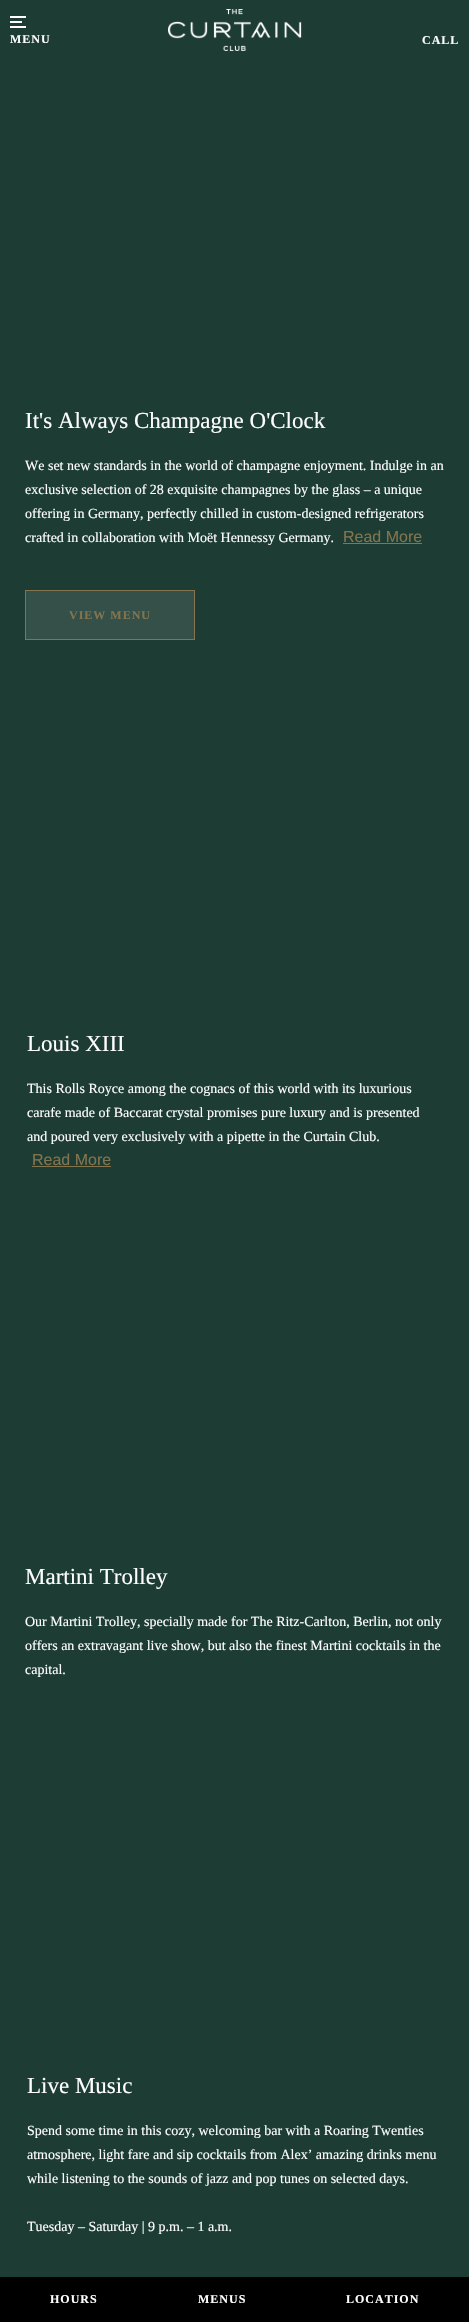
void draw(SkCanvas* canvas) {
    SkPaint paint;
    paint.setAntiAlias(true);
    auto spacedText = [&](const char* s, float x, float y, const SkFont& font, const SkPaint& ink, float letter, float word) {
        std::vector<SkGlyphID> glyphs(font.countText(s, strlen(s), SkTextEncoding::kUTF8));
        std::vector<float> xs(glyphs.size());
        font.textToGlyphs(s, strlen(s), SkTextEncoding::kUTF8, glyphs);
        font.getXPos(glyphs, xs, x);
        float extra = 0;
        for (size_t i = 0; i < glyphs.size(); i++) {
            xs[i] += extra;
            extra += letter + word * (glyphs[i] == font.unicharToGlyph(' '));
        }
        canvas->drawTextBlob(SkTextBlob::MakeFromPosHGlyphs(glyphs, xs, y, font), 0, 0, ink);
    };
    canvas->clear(0xFF1D3C34);
    paint.setColor(0xFFFFFFFF);
    canvas->drawRect(SkRect::MakeXYWH(10, 16, 16, 2), paint);
    canvas->drawRect(SkRect::MakeXYWH(10, 21, 12, 2), paint);
    canvas->drawRect(SkRect::MakeXYWH(10, 26, 16, 2), paint);
    SkFont font1(fontMgr->matchFamilyStyle("Liberation Serif", SkFontStyle::Bold()), 12);
    font1.setSubpixel(true);
    spacedText("MENU", 10, 43, font1, paint, 1, 0);
    canvas->drawImageRect(SkImages::DeferredFromEncodedData(SkData::MakeFromFileName("img1.png")), SkRect::MakeXYWH(168, 9, 134, 42), SkSamplingOptions());
    spacedText("CALL", 422, 44, font1, paint, 1, 0);
    SkFont font2(fontMgr->matchFamilyStyle("Liberation Serif", SkFontStyle::Normal()), 23);
    font2.setSubpixel(true);
    canvas->drawString("It's Always Champagne O'Clock", 25, 428, font2, paint);
    SkFont font3(fontMgr->matchFamilyStyle("Liberation Serif", SkFontStyle::Normal()), 14);
    font3.setSubpixel(true);
    canvas->drawString("We set new standards in the world of champagne enjoyment. Indulge in an", 25, 470, font3, paint);
    canvas->drawString("exclusive selection of 28 exquisite champagnes by the glass – a unique", 25, 494, font3, paint);
    canvas->drawString("offering in Germany, perfectly chilled in custom-designed refrigerators", 25, 518, font3, paint);
    canvas->drawString("crafted in collaboration with Moët Hennessy Germany.", 25, 542, font3, paint);
    SkFont font4(fontMgr->matchFamilyStyle("Liberation Sans", SkFontStyle::Normal()), 16);
    font4.setSubpixel(true);
    paint.setColor(0xFF84754E);
    canvas->drawString("Read More", 343, 542, font4, paint);
    canvas->drawRect(SkRect::MakeXYWH(343, 543, 79, 1), paint);
    paint.setColor(0xFF355049);
    canvas->drawRect(SkRect::MakeXYWH(25.5f, 590.5f, 169, 49), paint);
    paint.setStyle(SkPaint::kStroke_Style);
    paint.setStrokeWidth(1);
    paint.setColor(0xFF84754E);
    canvas->drawRect(SkRect::MakeXYWH(25.5f, 590.5f, 169, 49), paint);
    paint.setStyle(SkPaint::kFill_Style);
    spacedText("VIEW MENU", 69, 619, font1, paint, 1, 0);
    paint.setColor(0xFFFFFFFF);
    canvas->drawString("Louis XIII", 27, 1051, font2, paint);
    canvas->drawString("This Rolls Royce among the cognacs of this world with its luxurious", 27, 1093, font3, paint);
    canvas->drawString("carafe made of Baccarat crystal promises pure luxury and is presented", 27, 1117, font3, paint);
    canvas->drawString("and poured very exclusively with a pipette in the Curtain Club.", 27, 1141, font3, paint);
    paint.setColor(0xFF84754E);
    canvas->drawString("Read More", 32, 1165, font4, paint);
    canvas->drawRect(SkRect::MakeXYWH(32, 1166, 79, 1), paint);
    paint.setColor(0xFFFFFFFF);
    canvas->drawString("Martini Trolley", 25, 1584, font2, paint);
    canvas->drawString("Our Martini Trolley, specially made for The Ritz-Carlton, Berlin, not only", 25, 1626, font3, paint);
    canvas->drawString("offers an extravagant live show, but also the finest Martini cocktails in the", 25, 1650, font3, paint);
    canvas->drawString("capital.", 25, 1674, font3, paint);
    canvas->drawString("Live Music", 27, 2093, font2, paint);
    canvas->drawString("Spend some time in this cozy, welcoming bar with a Roaring Twenties", 27, 2135, font3, paint);
    canvas->drawString("atmosphere, light fare and sip cocktails from Alex’ amazing drinks menu", 27, 2159, font3, paint);
    canvas->drawString("while listening to the sounds of jazz and pop tunes on selected days.", 27, 2183, font3, paint);
    canvas->drawString("Tuesday – Saturday | 9 p.m. – 1 a.m.", 27, 2231, font3, paint);
    paint.setColor(0xFF000000);
    canvas->drawRect(SkRect::MakeXYWH(0, 2277, 469, 45), paint);
    paint.setColor(0xFFFFFFFF);
    spacedText("HOURS", 50, 2303, font1, paint, 1, 0);
    spacedText("MENUS", 198, 2303, font1, paint, 1, 0);
    spacedText("LOCATION", 346, 2303, font1, paint, 1, 0);
}
